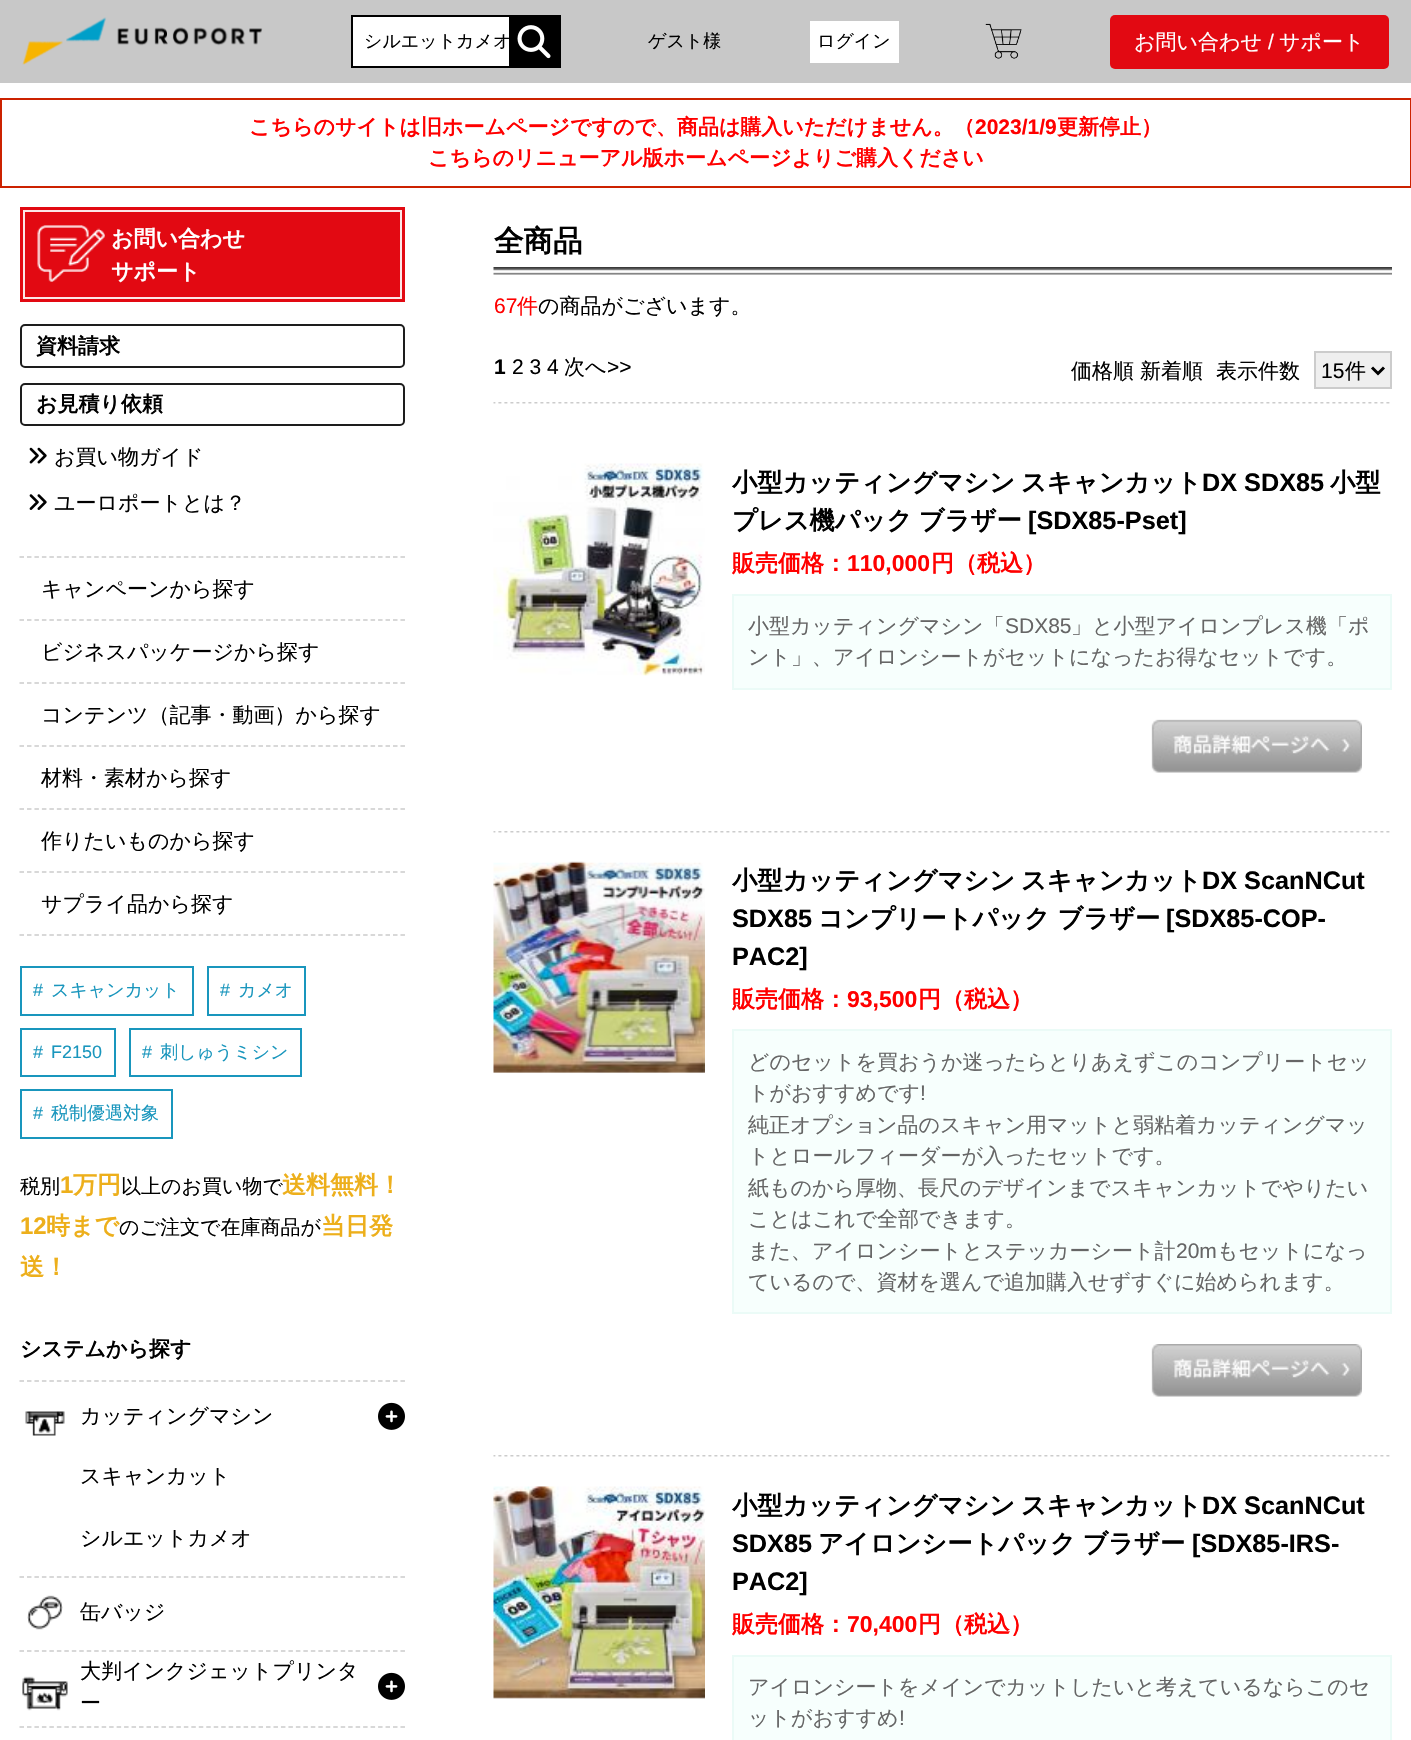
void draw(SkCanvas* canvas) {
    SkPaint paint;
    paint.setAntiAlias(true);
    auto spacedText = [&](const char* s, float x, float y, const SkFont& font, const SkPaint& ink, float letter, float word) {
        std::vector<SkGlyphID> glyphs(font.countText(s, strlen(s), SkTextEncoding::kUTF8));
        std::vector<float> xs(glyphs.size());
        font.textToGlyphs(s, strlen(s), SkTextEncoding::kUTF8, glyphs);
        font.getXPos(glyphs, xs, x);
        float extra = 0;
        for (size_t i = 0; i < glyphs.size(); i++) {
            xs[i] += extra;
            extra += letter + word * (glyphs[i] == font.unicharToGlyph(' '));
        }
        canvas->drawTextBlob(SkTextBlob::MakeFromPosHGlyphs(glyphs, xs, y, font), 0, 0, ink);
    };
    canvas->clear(0xFFFFFFFF);
    paint.setColor(0xFFC8C8C8);
    canvas->drawRect(SkRect::MakeXYWH(0, 0, 1411, 83), paint);
    canvas->drawImageRect(SkImages::DeferredFromEncodedData(SkData::MakeFromFileName("img1.png")), SkRect::MakeXYWH(22, 17, 241, 48), SkSamplingOptions());
    paint.setColor(0xFFFFFFFF);
    canvas->drawRect(SkRect::MakeXYWH(353, 17, 156, 49), paint);
    paint.setStyle(SkPaint::kStroke_Style);
    paint.setStrokeWidth(2);
    paint.setColor(0xFF000000);
    canvas->drawRect(SkRect::MakeXYWH(352, 16, 208, 51), paint);
    SkFont font1(fontMgr->matchFamilyStyle("WenQuanYi Zen Hei", SkFontStyle(500, SkFontStyle::kNormal_Width, SkFontStyle::kUpright_Slant)), 18);
    font1.setSubpixel(true);
    paint.setStyle(SkPaint::kFill_Style);
    canvas->drawString("シルエットカメオ", 364, 47, font1, paint);
    canvas->drawRect(SkRect::MakeXYWH(509, 17, 50, 49), paint);
    canvas->drawImageRect(SkImages::DeferredFromEncodedData(SkData::MakeFromFileName("img2.png")), SkRect::MakeXYWH(517, 25, 34, 34), SkSamplingOptions());
    canvas->drawString("ゲスト様", 648, 47, font1, paint);
    paint.setColor(0xFFFFFFFF);
    canvas->drawRect(SkRect::MakeXYWH(810, 21, 89, 42), paint);
    paint.setColor(0xFF000000);
    canvas->drawString("ログイン", 817, 47, font1, paint);
    canvas->drawImageRect(SkImages::DeferredFromEncodedData(SkData::MakeFromFileName("img3.png")), SkRect::MakeXYWH(985, 23, 37, 36), SkSamplingOptions());
    paint.setColor(0xFFE20912);
    canvas->drawRoundRect(SkRect::MakeXYWH(1110, 15, 279, 54), 5, 5, paint);
    SkFont font2(fontMgr->matchFamilyStyle("WenQuanYi Zen Hei", SkFontStyle(500, SkFontStyle::kNormal_Width, SkFontStyle::kUpright_Slant)), 21);
    font2.setSubpixel(true);
    paint.setColor(0xFFFFFFFF);
    canvas->drawString("お問い合わせ", 1134, 49, font2, paint);
    SkFont font3(fontMgr->matchFamilyStyle("Liberation Sans", SkFontStyle::Normal()), 21);
    font3.setSubpixel(true);
    canvas->drawString("/", 1268, 49, font3, paint);
    canvas->drawString("サポート", 1279, 49, font2, paint);
    paint.setStyle(SkPaint::kStroke_Style);
    paint.setColor(0xFFCC2200);
    canvas->drawRect(SkRect::MakeXYWH(1, 99, 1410, 88), paint);
    SkFont font4(fontMgr->matchFamilyStyle("WenQuanYi Zen Hei", SkFontStyle::Bold()), 21);
    font4.setSubpixel(true);
    paint.setStyle(SkPaint::kFill_Style);
    paint.setColor(0xFFFF0000);
    canvas->drawString("こちらのサイトは旧ホームページですので、商品は購入いただけません。（", 249, 134, font4, paint);
    SkFont font5(fontMgr->matchFamilyStyle("Liberation Sans", SkFontStyle::Bold()), 21);
    font5.setSubpixel(true);
    canvas->drawString("2023/1/9", 975, 134, font5, paint);
    canvas->drawString("更新停止）", 1057, 134, font4, paint);
    canvas->drawString("こちらのリニューアル版ホームページよりご購入ください", 428, 165, font4, paint);
    paint.setColor(0xFFE20912);
    canvas->drawRect(SkRect::MakeXYWH(20, 207, 385, 95), paint);
    canvas->drawImageRect(SkImages::DeferredFromEncodedData(SkData::MakeFromFileName("img4.png")), SkRect::MakeXYWH(37, 225, 68, 57), SkSamplingOptions());
    paint.setStyle(SkPaint::kStroke_Style);
    paint.setColor(0xFFFCE6E7);
    canvas->drawRect(SkRect::MakeXYWH(24, 211, 377, 87), paint);
    SkFont font6(fontMgr->matchFamilyStyle("WenQuanYi Zen Hei", SkFontStyle::Bold()), 22);
    font6.setSubpixel(true);
    paint.setStyle(SkPaint::kFill_Style);
    paint.setColor(0xFFFFFFFF);
    canvas->drawString("お問い合わせ", 111, 246, font6, paint);
    canvas->drawString("サポート", 111, 279, font6, paint);
    paint.setStyle(SkPaint::kStroke_Style);
    paint.setColor(0xFF1D1D1D);
    canvas->drawRoundRect(SkRect::MakeXYWH(21, 325, 383, 42), 4, 4, paint);
    paint.setStyle(SkPaint::kFill_Style);
    paint.setColor(0xFF000000);
    canvas->drawString("資料請求", 36, 353, font4, paint);
    paint.setStyle(SkPaint::kStroke_Style);
    paint.setColor(0xFF1D1D1D);
    canvas->drawRoundRect(SkRect::MakeXYWH(21, 384, 383, 41), 4, 4, paint);
    paint.setStyle(SkPaint::kFill_Style);
    paint.setColor(0xFF000000);
    canvas->drawString("お見積り依頼", 36, 411, font4, paint);
    canvas->drawImageRect(SkImages::DeferredFromEncodedData(SkData::MakeFromFileName("img5.png")), SkRect::MakeXYWH(29, 447, 18, 17), SkSamplingOptions());
    canvas->drawString("お買い物ガイド", 54, 464, font2, paint);
    canvas->drawImageRect(SkImages::DeferredFromEncodedData(SkData::MakeFromFileName("img6.png")), SkRect::MakeXYWH(29, 494, 18, 16), SkSamplingOptions());
    canvas->drawString("ユーロポートとは？", 54, 510, font2, paint);
    paint.setStyle(SkPaint::kStroke_Style);
    paint.setStrokeWidth(1.5f);
    paint.setColor(0xFFCCCCCC);
    paint.setPathEffect(SkDashPathEffect::Make({{4.5f, 2.97f}}, 0));
    canvas->drawPath(SkPathBuilder().moveTo(19.5f, 557).lineTo(405, 557).detach(), paint);
    paint.setPathEffect(nullptr);
    paint.setPathEffect(SkDashPathEffect::Make({{4.5f, 2.97f}}, 0));
    canvas->drawPath(SkPathBuilder().moveTo(19.5f, 620).lineTo(405, 620).detach(), paint);
    paint.setPathEffect(nullptr);
    paint.setStyle(SkPaint::kFill_Style);
    paint.setColor(0xFF000000);
    canvas->drawString("キャンペーンから探す", 41, 596, font2, paint);
    paint.setStyle(SkPaint::kStroke_Style);
    paint.setColor(0xFFCCCCCC);
    paint.setPathEffect(SkDashPathEffect::Make({{4.5f, 2.97f}}, 0));
    canvas->drawPath(SkPathBuilder().moveTo(19.5f, 683).lineTo(405, 683).detach(), paint);
    paint.setPathEffect(nullptr);
    paint.setStyle(SkPaint::kFill_Style);
    paint.setColor(0xFF000000);
    canvas->drawString("ビジネスパッケージから探す", 41, 659, font2, paint);
    paint.setStyle(SkPaint::kStroke_Style);
    paint.setColor(0xFFCCCCCC);
    paint.setPathEffect(SkDashPathEffect::Make({{4.5f, 2.97f}}, 0));
    canvas->drawPath(SkPathBuilder().moveTo(19.5f, 746).lineTo(405, 746).detach(), paint);
    paint.setPathEffect(nullptr);
    paint.setStyle(SkPaint::kFill_Style);
    paint.setColor(0xFF000000);
    canvas->drawString("コンテンツ（記事・動画）から探す", 41, 722, font2, paint);
    paint.setStyle(SkPaint::kStroke_Style);
    paint.setColor(0xFFCCCCCC);
    paint.setPathEffect(SkDashPathEffect::Make({{4.5f, 2.97f}}, 0));
    canvas->drawPath(SkPathBuilder().moveTo(19.5f, 809).lineTo(405, 809).detach(), paint);
    paint.setPathEffect(nullptr);
    paint.setStyle(SkPaint::kFill_Style);
    paint.setColor(0xFF000000);
    canvas->drawString("材料・素材から探す", 41, 785, font2, paint);
    paint.setStyle(SkPaint::kStroke_Style);
    paint.setColor(0xFFCCCCCC);
    paint.setPathEffect(SkDashPathEffect::Make({{4.5f, 2.97f}}, 0));
    canvas->drawPath(SkPathBuilder().moveTo(19.5f, 872).lineTo(405, 872).detach(), paint);
    paint.setPathEffect(nullptr);
    paint.setStyle(SkPaint::kFill_Style);
    paint.setColor(0xFF000000);
    canvas->drawString("作りたいものから探す", 41, 848, font2, paint);
    paint.setStyle(SkPaint::kStroke_Style);
    paint.setColor(0xFFCCCCCC);
    paint.setPathEffect(SkDashPathEffect::Make({{4.5f, 2.97f}}, 0));
    canvas->drawPath(SkPathBuilder().moveTo(19.5f, 935).lineTo(405, 935).detach(), paint);
    paint.setPathEffect(nullptr);
    paint.setStyle(SkPaint::kFill_Style);
    paint.setColor(0xFF000000);
    canvas->drawString("サプライ品から探す", 41, 911, font2, paint);
    paint.setStyle(SkPaint::kStroke_Style);
    paint.setStrokeWidth(2);
    paint.setColor(0xFF1996BD);
    canvas->drawRect(SkRect::MakeXYWH(21, 967, 172, 48), paint);
    SkFont font7(fontMgr->matchFamilyStyle("Liberation Sans", SkFontStyle::Normal()), 18);
    font7.setSubpixel(true);
    paint.setStyle(SkPaint::kFill_Style);
    canvas->drawString("#", 33, 996, font7, paint);
    canvas->drawString("スキャンカット", 51, 996, font1, paint);
    paint.setStyle(SkPaint::kStroke_Style);
    canvas->drawRect(SkRect::MakeXYWH(208, 967, 97, 48), paint);
    paint.setStyle(SkPaint::kFill_Style);
    canvas->drawString("#", 220, 996, font7, paint);
    canvas->drawString("カメオ", 238, 996, font1, paint);
    paint.setStyle(SkPaint::kStroke_Style);
    canvas->drawRect(SkRect::MakeXYWH(21, 1029, 94, 47), paint);
    paint.setStyle(SkPaint::kFill_Style);
    canvas->drawString("#", 33, 1058, font7, paint);
    canvas->drawString("F2150", 51, 1058, font7, paint);
    paint.setStyle(SkPaint::kStroke_Style);
    canvas->drawRect(SkRect::MakeXYWH(130, 1029, 171, 47), paint);
    paint.setStyle(SkPaint::kFill_Style);
    canvas->drawString("#", 142, 1058, font7, paint);
    canvas->drawString("刺しゅうミシン", 160, 1058, font1, paint);
    paint.setStyle(SkPaint::kStroke_Style);
    canvas->drawRect(SkRect::MakeXYWH(21, 1090, 151, 48), paint);
    paint.setStyle(SkPaint::kFill_Style);
    canvas->drawString("#", 33, 1119, font7, paint);
    canvas->drawString("税制優遇対象", 51, 1119, font1, paint);
    SkFont font8(fontMgr->matchFamilyStyle("WenQuanYi Zen Hei", SkFontStyle(500, SkFontStyle::kNormal_Width, SkFontStyle::kUpright_Slant)), 20);
    font8.setSubpixel(true);
    paint.setColor(0xFF000000);
    canvas->drawString("税別", 20, 1193, font8, paint);
    SkFont font9(fontMgr->matchFamilyStyle("Liberation Sans", SkFontStyle::Bold()), 24);
    font9.setSubpixel(true);
    paint.setColor(0xFFEDAF1B);
    canvas->drawString("1", 60, 1193, font9, paint);
    SkFont font10(fontMgr->matchFamilyStyle("WenQuanYi Zen Hei", SkFontStyle::Bold()), 24);
    font10.setSubpixel(true);
    canvas->drawString("万円", 73, 1193, font10, paint);
    paint.setColor(0xFF000000);
    canvas->drawString("以上のお買い物で", 121, 1193, font8, paint);
    paint.setColor(0xFFEDAF1B);
    canvas->drawString("送料無料！", 282, 1193, font10, paint);
    canvas->drawString("12", 20, 1234, font9, paint);
    canvas->drawString("時まで", 46, 1234, font10, paint);
    paint.setColor(0xFF000000);
    canvas->drawString("のご注文で在庫商品が", 119, 1234, font8, paint);
    paint.setColor(0xFFEDAF1B);
    canvas->drawString("当日発", 321, 1234, font10, paint);
    canvas->drawString("送！", 20, 1275, font10, paint);
    paint.setColor(0xFF000000);
    canvas->drawString("システムから探す", 20, 1356, font4, paint);
    canvas->drawImageRect(SkImages::DeferredFromEncodedData(SkData::MakeFromFileName("img7.png")), SkRect::MakeXYWH(25, 1411, 40, 25), SkSamplingOptions());
    paint.setStyle(SkPaint::kStroke_Style);
    paint.setStrokeWidth(1.5f);
    paint.setColor(0xFFCCCCCC);
    paint.setPathEffect(SkDashPathEffect::Make({{4.5f, 2.97f}}, 0));
    canvas->drawPath(SkPathBuilder().moveTo(19.5f, 1381).lineTo(405, 1381).detach(), paint);
    paint.setPathEffect(nullptr);
    paint.setPathEffect(SkDashPathEffect::Make({{4.5f, 2.97f}}, 0));
    canvas->drawPath(SkPathBuilder().moveTo(19.5f, 1577).lineTo(405, 1577).detach(), paint);
    paint.setPathEffect(nullptr);
    paint.setStyle(SkPaint::kFill_Style);
    paint.setColor(0xFF000000);
    canvas->drawString("カッティングマシン", 80, 1423, font2, paint);
    canvas->drawImageRect(SkImages::DeferredFromEncodedData(SkData::MakeFromFileName("img8.png")), SkRect::MakeXYWH(378, 1402, 27, 28), SkSamplingOptions());
    canvas->drawString("スキャンカット", 80, 1483, font2, paint);
    canvas->drawString("シルエットカメオ", 80, 1545, font2, paint);
    canvas->drawImageRect(SkImages::DeferredFromEncodedData(SkData::MakeFromFileName("img9.png")), SkRect::MakeXYWH(27, 1595, 36, 35), SkSamplingOptions());
    paint.setStyle(SkPaint::kStroke_Style);
    paint.setColor(0xFFCCCCCC);
    paint.setPathEffect(SkDashPathEffect::Make({{4.5f, 2.97f}}, 0));
    canvas->drawPath(SkPathBuilder().moveTo(19.5f, 1651).lineTo(405, 1651).detach(), paint);
    paint.setPathEffect(nullptr);
    paint.setStyle(SkPaint::kFill_Style);
    paint.setColor(0xFF000000);
    canvas->drawString("缶バッジ", 80, 1619, font2, paint);
    canvas->drawImageRect(SkImages::DeferredFromEncodedData(SkData::MakeFromFileName("img10.png")), SkRect::MakeXYWH(22, 1676, 46, 35), SkSamplingOptions());
    paint.setStyle(SkPaint::kStroke_Style);
    paint.setColor(0xFFCCCCCC);
    paint.setPathEffect(SkDashPathEffect::Make({{4.5f, 2.97f}}, 0));
    canvas->drawPath(SkPathBuilder().moveTo(19.5f, 1727).lineTo(405, 1727).detach(), paint);
    paint.setPathEffect(nullptr);
    paint.setStyle(SkPaint::kFill_Style);
    paint.setColor(0xFF000000);
    canvas->drawString("大判インクジェットプリンタ", 80, 1678, font2, paint);
    canvas->drawString("ー", 80, 1710, font2, paint);
    canvas->drawImageRect(SkImages::DeferredFromEncodedData(SkData::MakeFromFileName("img8.png")), SkRect::MakeXYWH(378, 1672, 27, 28), SkSamplingOptions());
    canvas->drawImageRect(SkImages::DeferredFromEncodedData(SkData::MakeFromFileName("img11.png")), SkRect::MakeXYWH(493, 267, 899, 8), SkSamplingOptions());
    SkFont font11(fontMgr->matchFamilyStyle("WenQuanYi Zen Hei", SkFontStyle::Bold()), 29.5f);
    font11.setSubpixel(true);
    canvas->drawString("全商品", 494, 251, font11, paint);
    paint.setColor(0xFFFF0000);
    canvas->drawString("67", 494, 313, font3, paint);
    canvas->drawString("件", 517, 313, font2, paint);
    paint.setColor(0xFF000000);
    canvas->drawString("の商品がございます。", 538, 313, font2, paint);
    canvas->drawImageRect(SkImages::DeferredFromEncodedData(SkData::MakeFromFileName("img12.png")), SkRect::MakeXYWH(493, 402, 897, 2), SkSamplingOptions());
    canvas->drawString("1", 494, 374, font5, paint);
    canvas->drawString("2 3 4", 512, 374, font3, paint);
    canvas->drawString("次へ", 564, 374, font2, paint);
    canvas->drawString(">>", 607, 374, font3, paint);
    canvas->drawString("価格順", 1071, 378, font2, paint);
    canvas->drawString("新着順", 1140, 378, font2, paint);
    canvas->drawString("表示件数", 1216, 378, font2, paint);
    paint.setColor(0xFFEFEFEF);
    canvas->drawRect(SkRect::MakeXYWH(1315, 352, 76, 36), paint);
    paint.setStyle(SkPaint::kStroke_Style);
    paint.setStrokeWidth(2);
    paint.setColor(0xFFCCCCCC);
    canvas->drawRect(SkRect::MakeXYWH(1315, 352, 76, 36), paint);
    paint.setStrokeWidth(3);
    paint.setColor(0xFF000000);
    canvas->drawPath(SkPathBuilder().moveTo(1372, 367.5f).lineTo(1378, 373.5f).lineTo(1384, 367.5f).detach(), paint);
    paint.setStyle(SkPaint::kFill_Style);
    canvas->drawString("15", 1321, 378, font3, paint);
    canvas->drawString("件", 1345, 378, font2, paint);
    canvas->drawImageRect(SkImages::DeferredFromEncodedData(SkData::MakeFromFileName("img12.png")), SkRect::MakeXYWH(493, 831, 897, 2), SkSamplingOptions());
    canvas->drawImageRect(SkImages::DeferredFromEncodedData(SkData::MakeFromFileName("img13.png")), SkRect::MakeXYWH(493, 463, 212, 213), SkSamplingOptions());
    SkFont font12(fontMgr->matchFamilyStyle("WenQuanYi Zen Hei", SkFontStyle::Bold()), 25.25f);
    font12.setSubpixel(true);
    canvas->drawString("小型カッティングマシン", 732, 491, font12, paint);
    canvas->drawString("スキャンカット", 1021, 491, font12, paint);
    SkFont font13(fontMgr->matchFamilyStyle("Liberation Sans", SkFontStyle::Bold()), 25.25f);
    font13.setSubpixel(true);
    canvas->drawString("DX SDX85", 1202, 491, font13, paint);
    canvas->drawString("小型", 1330, 491, font12, paint);
    spacedText("プレス機パック ブラザー", 732, 529, font12, paint, 0, -1);
    canvas->drawString("[SDX85-Pset]", 1028, 529, font13, paint);
    SkFont font14(fontMgr->matchFamilyStyle("WenQuanYi Zen Hei", SkFontStyle::Bold()), 23);
    font14.setSubpixel(true);
    paint.setColor(0xFFFF0000);
    canvas->drawString("販売価格：", 732, 571, font14, paint);
    SkFont font15(fontMgr->matchFamilyStyle("Liberation Sans", SkFontStyle::Bold()), 23);
    font15.setSubpixel(true);
    canvas->drawString("110,000", 847, 571, font15, paint);
    canvas->drawString("円（税込）", 931, 571, font14, paint);
    paint.setColor(0xFFF7FFFD);
    canvas->drawRect(SkRect::MakeXYWH(733, 595, 658, 94), paint);
    paint.setStyle(SkPaint::kStroke_Style);
    paint.setStrokeWidth(2);
    paint.setColor(0xFFEBFBF7);
    canvas->drawRect(SkRect::MakeXYWH(733, 595, 658, 94), paint);
    paint.setStyle(SkPaint::kFill_Style);
    paint.setColor(0xFF666666);
    canvas->drawString("小型カッティングマシン「", 748, 633, font2, paint);
    canvas->drawString("SDX85", 1005, 633, font3, paint);
    canvas->drawString("」と小型アイロンプレス機「ポ", 1071, 633, font2, paint);
    canvas->drawString("ント」、アイロンシートがセットになったお得なセットです。", 748, 664, font2, paint);
    canvas->drawImageRect(SkImages::DeferredFromEncodedData(SkData::MakeFromFileName("img14.png")), SkRect::MakeXYWH(1151, 719, 211, 54), SkSamplingOptions());
    canvas->drawImageRect(SkImages::DeferredFromEncodedData(SkData::MakeFromFileName("img12.png")), SkRect::MakeXYWH(493, 1455, 897, 2), SkSamplingOptions());
    canvas->drawImageRect(SkImages::DeferredFromEncodedData(SkData::MakeFromFileName("img15.png")), SkRect::MakeXYWH(493, 861, 212, 212), SkSamplingOptions());
    paint.setColor(0xFF000000);
    canvas->drawString("小型カッティングマシン", 732, 889, font12, paint);
    canvas->drawString("スキャンカット", 1021, 889, font12, paint);
    canvas->drawString("DX ScanNCut", 1202, 889, font13, paint);
    canvas->drawString("SDX85", 732, 927, font13, paint);
    canvas->drawString("コンプリートパック ブラザー", 818, 927, font12, paint);
    canvas->drawString("[SDX85-COP-", 1166, 927, font13, paint);
    canvas->drawString("PAC2]", 732, 965, font13, paint);
    paint.setColor(0xFFFF0000);
    canvas->drawString("販売価格：", 732, 1007, font14, paint);
    canvas->drawString("93,500", 847, 1007, font15, paint);
    canvas->drawString("円（税込）", 918, 1007, font14, paint);
    paint.setColor(0xFFF7FFFD);
    canvas->drawRect(SkRect::MakeXYWH(733, 1030, 658, 283), paint);
    paint.setStyle(SkPaint::kStroke_Style);
    paint.setColor(0xFFEBFBF7);
    canvas->drawRect(SkRect::MakeXYWH(733, 1030, 658, 283), paint);
    paint.setStyle(SkPaint::kFill_Style);
    paint.setColor(0xFF666666);
    canvas->drawString("どのセットを買おうか迷ったらとりあえずこのコンプリートセッ", 748, 1069, font2, paint);
    canvas->drawString("トがおすすめです", 748, 1100, font2, paint);
    canvas->drawString("!", 920, 1100, font3, paint);
    canvas->drawString("純正オプション品のスキャン用マットと弱粘着カッティングマッ", 748, 1132, font2, paint);
    canvas->drawString("トとロールフィーダーが入ったセットです。", 748, 1163, font2, paint);
    canvas->drawString("紙ものから厚物、長尺のデザインまでスキャンカットでやりたい", 748, 1195, font2, paint);
    canvas->drawString("ことはこれで全部できます。", 748, 1226, font2, paint);
    canvas->drawString("また、アイロンシートとステッカーシート計", 748, 1258, font2, paint);
    canvas->drawString("20m", 1176, 1258, font3, paint);
    canvas->drawString("もセットになっ", 1217, 1258, font2, paint);
    canvas->drawString("ているので、資材を選んで追加購入せずすぐに始められます。", 748, 1289, font2, paint);
    canvas->drawImageRect(SkImages::DeferredFromEncodedData(SkData::MakeFromFileName("img16.png")), SkRect::MakeXYWH(1151, 1344, 211, 53), SkSamplingOptions());
    canvas->drawImageRect(SkImages::DeferredFromEncodedData(SkData::MakeFromFileName("img17.png")), SkRect::MakeXYWH(493, 1486, 212, 213), SkSamplingOptions());
    paint.setColor(0xFF000000);
    canvas->drawString("小型カッティングマシン", 732, 1514, font12, paint);
    canvas->drawString("スキャンカット", 1021, 1514, font12, paint);
    canvas->drawString("DX ScanNCut", 1202, 1514, font13, paint);
    canvas->drawString("SDX85", 732, 1552, font13, paint);
    spacedText("アイロンシートパック ブラザー", 818, 1552, font12, paint, 0, -1);
    canvas->drawString("[SDX85-IRS-", 1192, 1552, font13, paint);
    canvas->drawString("PAC2]", 732, 1590, font13, paint);
    paint.setColor(0xFFFF0000);
    canvas->drawString("販売価格：", 732, 1632, font14, paint);
    canvas->drawString("70,400", 847, 1632, font15, paint);
    canvas->drawString("円（税込）", 918, 1632, font14, paint);
    paint.setColor(0xFFF7FFFD);
    canvas->drawRect(SkRect::MakeXYWH(733, 1656, 658, 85), paint);
    paint.setStyle(SkPaint::kStroke_Style);
    paint.setColor(0xFFEBFBF7);
    canvas->drawRect(SkRect::MakeXYWH(733, 1656, 658, 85), paint);
    paint.setStyle(SkPaint::kFill_Style);
    paint.setColor(0xFF666666);
    canvas->drawString("アイロンシートをメインでカットしたいと考えているならこのセ", 748, 1694, font2, paint);
    canvas->drawString("ットがおすすめ", 748, 1725, font2, paint);
    canvas->drawString("!", 899, 1725, font3, paint);
}
